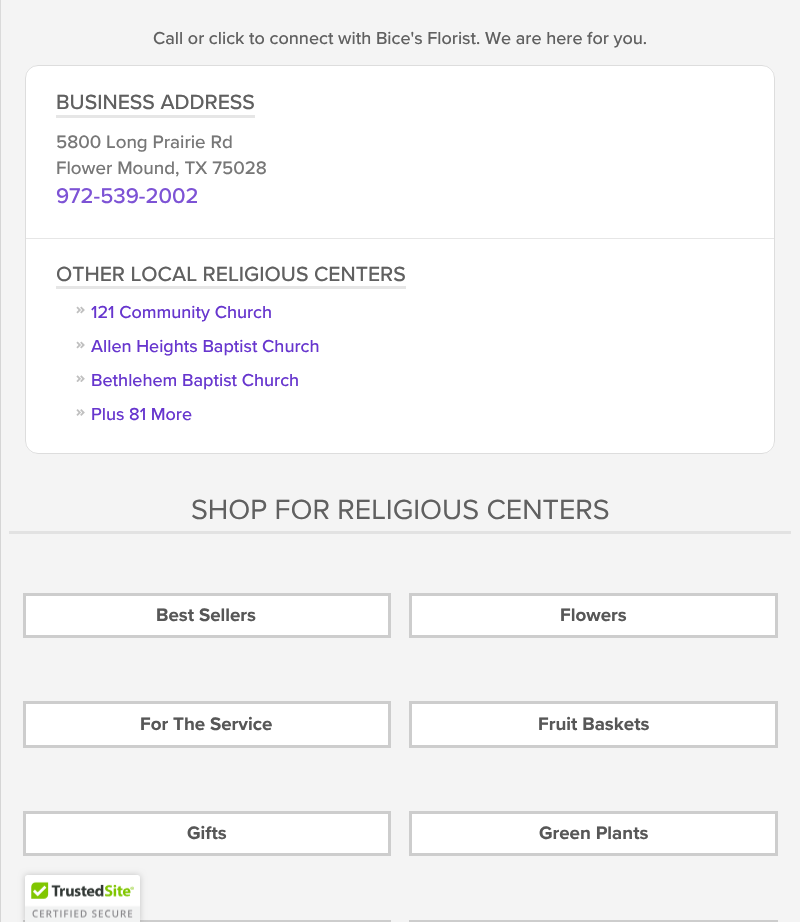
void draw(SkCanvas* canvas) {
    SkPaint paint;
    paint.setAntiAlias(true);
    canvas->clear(0xFFF4F4F4);
    paint.setColor(0xFFD5D5D5);
    canvas->drawRect(SkRect::MakeXYWH(0, 80, 1, 842), paint);
    paint.setColor(0xFFDADADA);
    canvas->drawRect(SkRect::MakeXYWH(0, 0, 1, 80), paint);
    SkFont font1(fontMgr->matchFamilyStyle("Proxima Nova", SkFontStyle(500, SkFontStyle::kNormal_Width, SkFontStyle::kUpright_Slant)), 18);
    font1.setSubpixel(true);
    paint.setColor(0xFF606060);
    canvas->drawString("Call or click to connect with Bice's Florist. We are here for you.", 153, 44, font1, paint);
    paint.setColor(0xFFFFFFFF);
    canvas->drawRoundRect(SkRect::MakeXYWH(25, 65, 750, 389), 13, 13, paint);
    paint.setStyle(SkPaint::kStroke_Style);
    paint.setStrokeWidth(1);
    paint.setColor(0xCCD5D5D5);
    canvas->drawRoundRect(SkRect::MakeXYWH(25.5f, 65.5f, 749, 388), 12.5f, 12.5f, paint);
    paint.setStyle(SkPaint::kFill_Style);
    paint.setColor(0xFFE6E6E6);
    canvas->drawRect(SkRect::MakeXYWH(56, 115, 199, 3), paint);
    SkFont font2(fontMgr->matchFamilyStyle("Proxima Nova", SkFontStyle(500, SkFontStyle::kNormal_Width, SkFontStyle::kUpright_Slant)), 21.25f);
    font2.setSubpixel(true);
    paint.setColor(0xFF606060);
    canvas->drawString("BUSINESS ADDRESS", 56, 109, font2, paint);
    SkFont font3(fontMgr->matchFamilyStyle("Proxima Nova", SkFontStyle(500, SkFontStyle::kNormal_Width, SkFontStyle::kUpright_Slant)), 18.75f);
    font3.setSubpixel(true);
    paint.setColor(0xFF777777);
    canvas->drawString("5800 Long Prairie Rd", 56, 148, font3, paint);
    canvas->drawString("Flower Mound, TX 75028", 56, 174, font3, paint);
    SkFont font4(fontMgr->matchFamilyStyle("Proxima Nova", SkFontStyle(500, SkFontStyle::kNormal_Width, SkFontStyle::kUpright_Slant)), 22);
    font4.setSubpixel(true);
    paint.setColor(0xFF7D53D5);
    canvas->drawString("972-539-2002", 56, 203, font4, paint);
    paint.setColor(0xFFE6E6E6);
    canvas->drawRect(SkRect::MakeXYWH(26, 238, 748, 1), paint);
    canvas->drawRect(SkRect::MakeXYWH(56, 286, 350, 3), paint);
    paint.setColor(0xFF606060);
    canvas->drawString("OTHER LOCAL RELIGIOUS CENTERS", 56, 281, font2, paint);
    canvas->drawImageRect(SkImages::DeferredFromEncodedData(SkData::MakeFromFileName("img1.png")), SkRect::MakeXYWH(76, 306, 9, 8), SkSamplingOptions());
    paint.setColor(0xFF6736CE);
    canvas->drawString("121 Community Church", 91, 318, font1, paint);
    canvas->drawImageRect(SkImages::DeferredFromEncodedData(SkData::MakeFromFileName("img1.png")), SkRect::MakeXYWH(76, 341, 9, 8), SkSamplingOptions());
    canvas->drawString("Allen Heights Baptist Church", 91, 352, font1, paint);
    canvas->drawImageRect(SkImages::DeferredFromEncodedData(SkData::MakeFromFileName("img2.png")), SkRect::MakeXYWH(76, 375, 9, 7), SkSamplingOptions());
    canvas->drawString("Bethlehem Baptist Church", 91, 386, font1, paint);
    canvas->drawImageRect(SkImages::DeferredFromEncodedData(SkData::MakeFromFileName("img3.png")), SkRect::MakeXYWH(76, 409, 9, 7), SkSamplingOptions());
    canvas->drawString("Plus 81 More", 91, 420, font1, paint);
    SkFont font5(fontMgr->matchFamilyStyle("Proxima Nova", SkFontStyle::Normal()), 28.75f);
    font5.setSubpixel(true);
    paint.setColor(0xFF606060);
    canvas->drawString("SHOP FOR RELIGIOUS CENTERS", 191, 519, font5, paint);
    paint.setColor(0xFFE2E2E2);
    canvas->drawRect(SkRect::MakeXYWH(9, 531, 782, 3), paint);
    paint.setColor(0xFFFFFFFF);
    canvas->drawRect(SkRect::MakeXYWH(24.5f, 594.5f, 365, 42), paint);
    paint.setStyle(SkPaint::kStroke_Style);
    paint.setStrokeWidth(3);
    paint.setColor(0xFFCDCDCD);
    canvas->drawRect(SkRect::MakeXYWH(24.5f, 594.5f, 365, 42), paint);
    SkFont font6(fontMgr->matchFamilyStyle("Proxima Nova", SkFontStyle::Bold()), 18.75f);
    font6.setSubpixel(true);
    paint.setStyle(SkPaint::kFill_Style);
    paint.setColor(0xFF575757);
    canvas->drawString("Best Sellers", 156, 621, font6, paint);
    paint.setColor(0xFFFFFFFF);
    canvas->drawRect(SkRect::MakeXYWH(410.5f, 594.5f, 366, 42), paint);
    paint.setStyle(SkPaint::kStroke_Style);
    paint.setColor(0xFFCDCDCD);
    canvas->drawRect(SkRect::MakeXYWH(410.5f, 594.5f, 366, 42), paint);
    paint.setStyle(SkPaint::kFill_Style);
    paint.setColor(0xFF575757);
    canvas->drawString("Flowers", 560, 621, font6, paint);
    paint.setColor(0xFFFFFFFF);
    canvas->drawRect(SkRect::MakeXYWH(24.5f, 702.5f, 365, 44), paint);
    paint.setStyle(SkPaint::kStroke_Style);
    paint.setColor(0xFFCDCDCD);
    canvas->drawRect(SkRect::MakeXYWH(24.5f, 702.5f, 365, 44), paint);
    paint.setStyle(SkPaint::kFill_Style);
    paint.setColor(0xFF575757);
    canvas->drawString("For The Service", 140, 730, font6, paint);
    paint.setColor(0xFFFFFFFF);
    canvas->drawRect(SkRect::MakeXYWH(410.5f, 702.5f, 366, 44), paint);
    paint.setStyle(SkPaint::kStroke_Style);
    paint.setColor(0xFFCDCDCD);
    canvas->drawRect(SkRect::MakeXYWH(410.5f, 702.5f, 366, 44), paint);
    paint.setStyle(SkPaint::kFill_Style);
    paint.setColor(0xFF575757);
    canvas->drawString("Fruit Baskets", 538, 730, font6, paint);
    paint.setColor(0xFFFFFFFF);
    canvas->drawRect(SkRect::MakeXYWH(24.5f, 812.5f, 365, 42), paint);
    paint.setStyle(SkPaint::kStroke_Style);
    paint.setColor(0xFFCDCDCD);
    canvas->drawRect(SkRect::MakeXYWH(24.5f, 812.5f, 365, 42), paint);
    paint.setStyle(SkPaint::kFill_Style);
    paint.setColor(0xFF575757);
    canvas->drawString("Gifts", 187, 839, font6, paint);
    paint.setColor(0xFFFFFFFF);
    canvas->drawRect(SkRect::MakeXYWH(410.5f, 812.5f, 366, 42), paint);
    paint.setStyle(SkPaint::kStroke_Style);
    paint.setColor(0xFFCDCDCD);
    canvas->drawRect(SkRect::MakeXYWH(410.5f, 812.5f, 366, 42), paint);
    paint.setStyle(SkPaint::kFill_Style);
    paint.setColor(0xFF575757);
    canvas->drawString("Green Plants", 539, 839, font6, paint);
    paint.setStyle(SkPaint::kStroke_Style);
    paint.setColor(0xFFCDCDCD);
    canvas->drawRect(SkRect::MakeXYWH(24.5f, 921.5f, 365, 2), paint);
    canvas->drawRect(SkRect::MakeXYWH(410.5f, 921.5f, 366, 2), paint);
    paint.setStyle(SkPaint::kFill_Style);
    paint.setColor(0x33000000);
    paint.setMaskFilter(SkMaskFilter::MakeBlur(kNormal_SkBlurStyle, 3));
    canvas->drawRoundRect(SkRect::MakeXYWH(25, 875, 115, 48), 2.5f, 2.5f, paint);
    paint.setMaskFilter(nullptr);
    paint.setColor(0xFFFFFFFF);
    canvas->drawPath(SkPathBuilder().moveTo(27.5f, 875).lineTo(137.5f, 875).cubicTo(139, 875, 140, 876, 140, 877.5f).lineTo(140, 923).lineTo(25, 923).lineTo(25, 877.5f).cubicTo(25, 876, 26, 875, 27.5f, 875).close().detach(), paint);
    canvas->drawImageRect(SkImages::DeferredFromEncodedData(SkData::MakeFromFileName("img4.png")), SkRect::MakeXYWH(25, 881, 115, 41), SkSamplingOptions());
}
